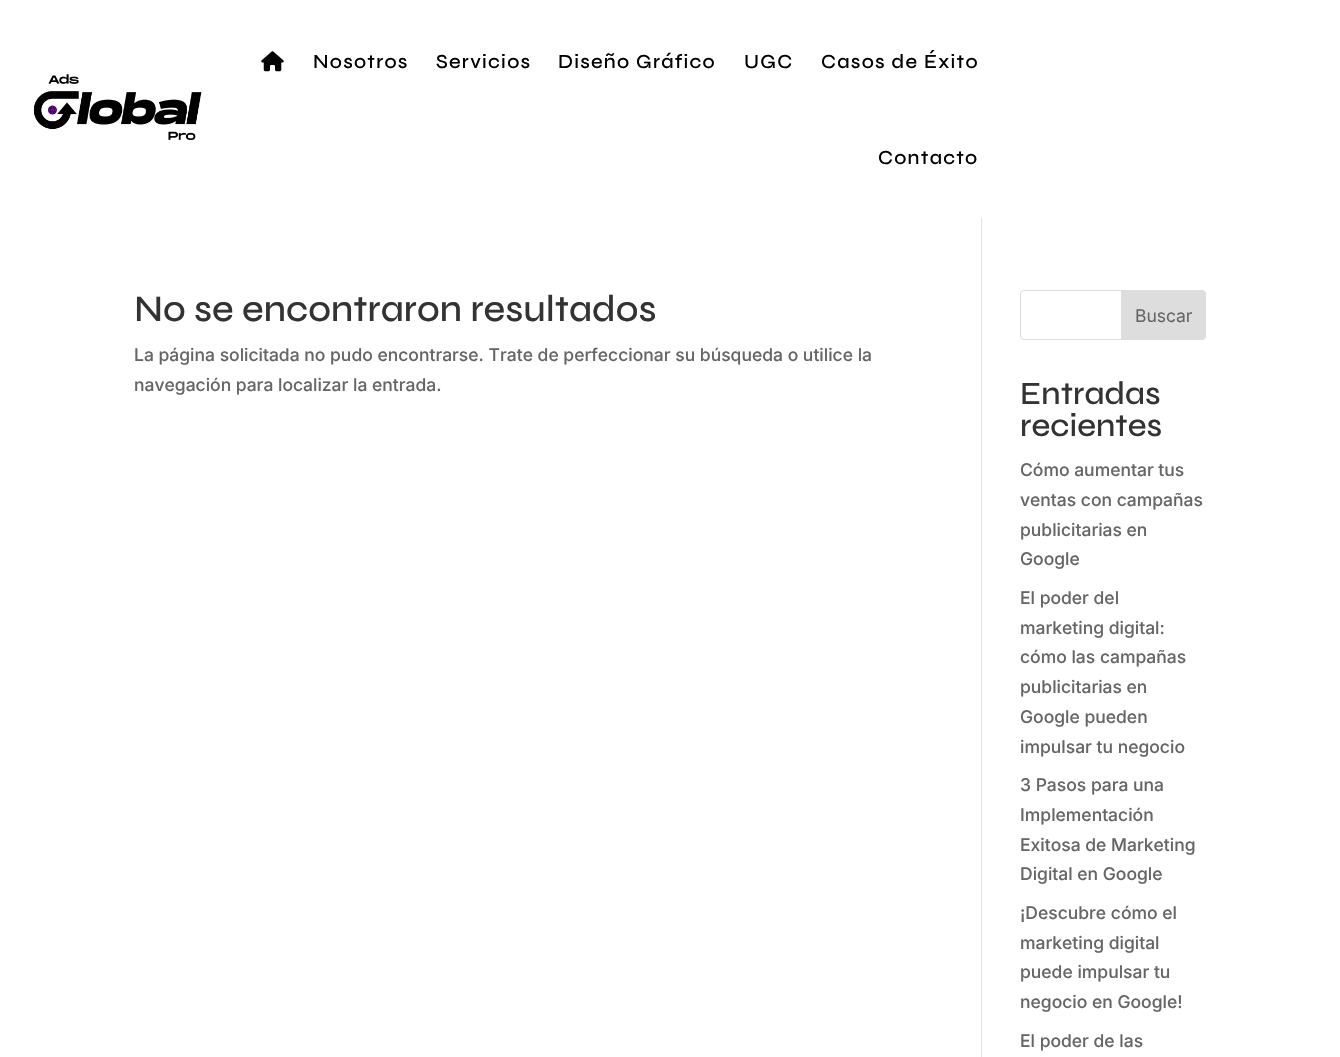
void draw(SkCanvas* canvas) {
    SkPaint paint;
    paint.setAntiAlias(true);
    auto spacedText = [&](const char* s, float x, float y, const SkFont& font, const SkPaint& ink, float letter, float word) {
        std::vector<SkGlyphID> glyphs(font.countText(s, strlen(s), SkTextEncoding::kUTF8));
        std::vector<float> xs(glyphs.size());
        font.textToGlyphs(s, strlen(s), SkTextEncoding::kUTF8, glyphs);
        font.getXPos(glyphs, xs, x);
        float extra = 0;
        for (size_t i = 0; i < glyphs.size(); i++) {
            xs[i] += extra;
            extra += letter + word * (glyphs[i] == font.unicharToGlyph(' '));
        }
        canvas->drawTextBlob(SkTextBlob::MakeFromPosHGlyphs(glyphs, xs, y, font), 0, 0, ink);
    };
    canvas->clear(0xFFFFFFFF);
    canvas->drawImageRect(SkImages::DeferredFromEncodedData(SkData::MakeFromFileName("img1.png")), SkRect::MakeXYWH(33, 74, 169, 66), SkSamplingOptions());
    canvas->drawImageRect(SkImages::DeferredFromEncodedData(SkData::MakeFromFileName("img2.png")), SkRect::MakeXYWH(261, 51, 23, 21), SkSamplingOptions());
    SkFont font1(fontMgr->matchFamilyStyle("Syne", SkFontStyle(500, SkFontStyle::kNormal_Width, SkFontStyle::kUpright_Slant)), 20);
    font1.setSubpixel(true);
    paint.setColor(0xFF000000);
    spacedText("Nosotros", 313, 68, font1, paint, 1.25f, 0);
    spacedText("Servicios", 436, 68, font1, paint, 1.25f, 0);
    spacedText("Diseño Gráfico", 558, 68, font1, paint, 1.25f, 0);
    spacedText("UGC", 744, 68, font1, paint, 1.25f, 0);
    spacedText("Casos de Éxito", 821, 68, font1, paint, 1.25f, 0);
    spacedText("Contacto", 878, 164, font1, paint, 1.25f, 0);
    paint.setColor(0xFFE2E2E2);
    canvas->drawRect(SkRect::MakeXYWH(981, 218, 1, 839), paint);
    SkFont font2(fontMgr->matchFamilyStyle("Syne", SkFontStyle(500, SkFontStyle::kNormal_Width, SkFontStyle::kUpright_Slant)), 37.5f);
    font2.setSubpixel(true);
    paint.setColor(0xFF333333);
    canvas->drawString("No se encontraron resultados", 134, 321, font2, paint);
    SkFont font3(fontMgr->matchFamilyStyle("Inter", SkFontStyle(500, SkFontStyle::kNormal_Width, SkFontStyle::kUpright_Slant)), 17.5f);
    font3.setSubpixel(true);
    paint.setColor(0xFF666666);
    canvas->drawString("La página solicitada no pudo encontrarse. Trate de perfeccionar su búsqueda o utilice la", 134, 361, font3, paint);
    canvas->drawString("navegación para localizar la entrada.", 134, 391, font3, paint);
    paint.setStyle(SkPaint::kStroke_Style);
    paint.setStrokeWidth(1);
    paint.setColor(0xFFDDDDDD);
    canvas->drawRoundRect(SkRect::MakeXYWH(1020.5f, 290.5f, 185, 49), 3.5f, 3.5f, paint);
    paint.setStyle(SkPaint::kFill_Style);
    canvas->drawPath(SkPathBuilder().moveTo(1121.5f, 290.5f).lineTo(1202, 290.5f).cubicTo(1204, 290.5f, 1205.5f, 292, 1205.5f, 294).lineTo(1205.5f, 336).cubicTo(1205.5f, 338, 1204, 339.5f, 1202, 339.5f).lineTo(1121.5f, 339.5f).close().detach(), paint);
    paint.setStyle(SkPaint::kStroke_Style);
    canvas->drawPath(SkPathBuilder().moveTo(1121.5f, 290.5f).lineTo(1202, 290.5f).cubicTo(1204, 290.5f, 1205.5f, 292, 1205.5f, 294).lineTo(1205.5f, 336).cubicTo(1205.5f, 338, 1204, 339.5f, 1202, 339.5f).lineTo(1121.5f, 339.5f).close().detach(), paint);
    SkFont font4(fontMgr->matchFamilyStyle("Inter", SkFontStyle::Normal()), 17.5f);
    font4.setSubpixel(true);
    paint.setStyle(SkPaint::kFill_Style);
    paint.setColor(0xFF666666);
    canvas->drawString("Buscar", 1135, 322, font4, paint);
    SkFont font5(fontMgr->matchFamilyStyle("Syne", SkFontStyle(500, SkFontStyle::kNormal_Width, SkFontStyle::kUpright_Slant)), 32.5f);
    font5.setSubpixel(true);
    paint.setColor(0xFF333333);
    canvas->drawString("Entradas", 1020, 404, font5, paint);
    canvas->drawString("recientes", 1020, 436, font5, paint);
    paint.setColor(0xFF666666);
    canvas->drawString("Cómo aumentar tus", 1020, 476, font3, paint);
    canvas->drawString("ventas con campañas", 1020, 506, font3, paint);
    canvas->drawString("publicitarias en", 1020, 536, font3, paint);
    canvas->drawString("Google", 1020, 565, font3, paint);
    canvas->drawString("El poder del", 1020, 604, font3, paint);
    canvas->drawString("marketing digital:", 1020, 634, font3, paint);
    canvas->drawString("cómo las campañas", 1020, 663, font3, paint);
    canvas->drawString("publicitarias en", 1020, 693, font3, paint);
    canvas->drawString("Google pueden", 1020, 723, font3, paint);
    canvas->drawString("impulsar tu negocio", 1020, 753, font3, paint);
    canvas->drawString("3 Pasos para una", 1020, 791, font3, paint);
    canvas->drawString("Implementación", 1020, 821, font3, paint);
    canvas->drawString("Exitosa de Marketing", 1020, 851, font3, paint);
    canvas->drawString("Digital en Google", 1020, 880, font3, paint);
    canvas->drawString("¡Descubre cómo el", 1020, 919, font3, paint);
    canvas->drawString("marketing digital", 1020, 949, font3, paint);
    canvas->drawString("puede impulsar tu", 1020, 978, font3, paint);
    canvas->drawString("negocio en Google!", 1020, 1008, font3, paint);
    canvas->drawString("El poder de las", 1020, 1047, font3, paint);
}
